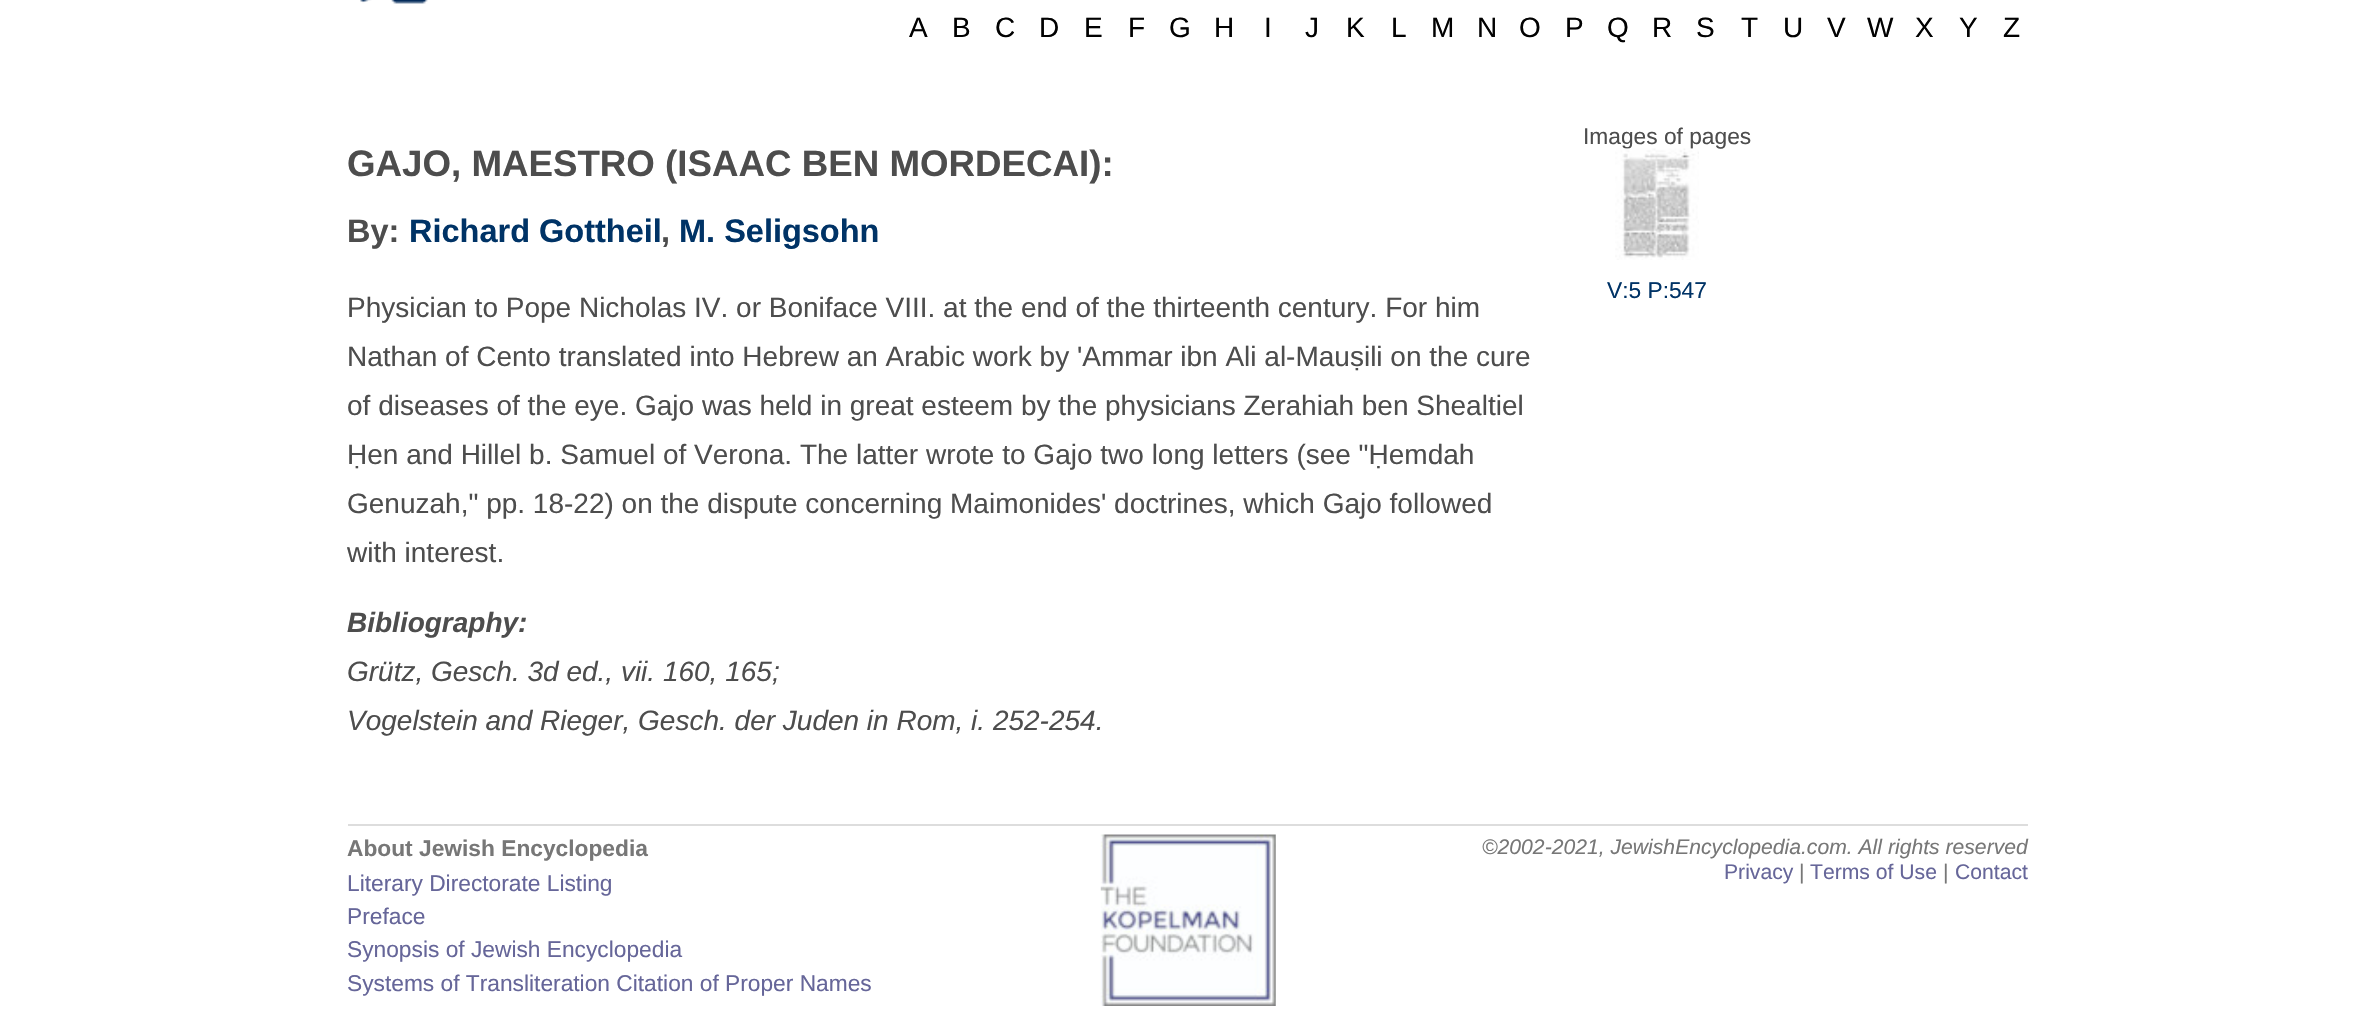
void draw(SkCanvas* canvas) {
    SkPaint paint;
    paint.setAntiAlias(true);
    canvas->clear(0xFFFFFFFF);
    canvas->drawImageRect(SkImages::DeferredFromEncodedData(SkData::MakeFromFileName("img1.png")), SkRect::MakeXYWH(360, 0, 68, 4), SkSamplingOptions());
    SkFont font1(fontMgr->matchFamilyStyle("Liberation Sans", SkFontStyle::Normal()), 28);
    font1.setSubpixel(true);
    paint.setColor(0xFF010101);
    canvas->drawString("A", 909, 37, font1, paint);
    canvas->drawString("B", 952, 37, font1, paint);
    canvas->drawString("C", 995, 37, font1, paint);
    canvas->drawString("D", 1039, 37, font1, paint);
    canvas->drawString("E", 1084, 37, font1, paint);
    canvas->drawString("F", 1128, 37, font1, paint);
    canvas->drawString("G", 1169, 37, font1, paint);
    canvas->drawString("H", 1214, 37, font1, paint);
    canvas->drawString("I", 1264, 37, font1, paint);
    canvas->drawString("J", 1305, 37, font1, paint);
    canvas->drawString("K", 1346, 37, font1, paint);
    canvas->drawString("L", 1391, 37, font1, paint);
    canvas->drawString("M", 1431, 37, font1, paint);
    canvas->drawString("N", 1477, 37, font1, paint);
    canvas->drawString("O", 1519, 37, font1, paint);
    canvas->drawString("P", 1565, 37, font1, paint);
    canvas->drawString("Q", 1607, 37, font1, paint);
    canvas->drawString("R", 1652, 37, font1, paint);
    canvas->drawString("S", 1696, 37, font1, paint);
    canvas->drawString("T", 1741, 37, font1, paint);
    canvas->drawString("U", 1783, 37, font1, paint);
    canvas->drawString("V", 1827, 37, font1, paint);
    canvas->drawString("W", 1867, 37, font1, paint);
    canvas->drawString("X", 1915, 37, font1, paint);
    canvas->drawString("Y", 1959, 37, font1, paint);
    canvas->drawString("Z", 2003, 37, font1, paint);
    SkFont font2(fontMgr->matchFamilyStyle("Liberation Sans", SkFontStyle::Bold()), 36.7f);
    font2.setSubpixel(true);
    paint.setColor(0xFF4D4D4D);
    canvas->drawString("GAJO, MAESTRO (ISAAC BEN MORDECAI):", 347, 176, font2, paint);
    SkFont font3(fontMgr->matchFamilyStyle("Liberation Sans", SkFontStyle::Bold()), 32.5f);
    font3.setSubpixel(true);
    canvas->drawString("By:", 347, 242, font3, paint);
    paint.setColor(0xFF003366);
    canvas->drawString("Richard Gottheil", 409, 242, font3, paint);
    paint.setColor(0xFF4D4D4D);
    canvas->drawString(",", 661, 242, font3, paint);
    paint.setColor(0xFF003366);
    canvas->drawString("M. Seligsohn", 679, 242, font3, paint);
    paint.setColor(0xFF4D4D4D);
    canvas->drawString("Physician to Pope Nicholas IV. or Boniface VIII. at the end of the thirteenth century. For him", 347, 317, font1, paint);
    canvas->drawString("Nathan of Cento translated into Hebrew an Arabic work by 'Ammar ibn Ali al-Mauṣili on the cure", 347, 366, font1, paint);
    canvas->drawString("of diseases of the eye. Gajo was held in great esteem by the physicians Zerahiah ben Shealtiel", 347, 415, font1, paint);
    canvas->drawString("Ḥen and Hillel b. Samuel of Verona. The latter wrote to Gajo two long letters (see \"Ḥemdah", 347, 464, font1, paint);
    canvas->drawString("Genuzah,\" pp. 18-22) on the dispute concerning Maimonides' doctrines, which Gajo followed", 347, 513, font1, paint);
    canvas->drawString("with interest.", 347, 562, font1, paint);
    SkFont font4(fontMgr->matchFamilyStyle("Liberation Sans", SkFontStyle::BoldItalic()), 28);
    font4.setSubpixel(true);
    canvas->drawString("Bibliography:", 347, 632, font4, paint);
    SkFont font5(fontMgr->matchFamilyStyle("Liberation Sans", SkFontStyle::Italic()), 28);
    font5.setSubpixel(true);
    canvas->drawString("Grütz, Gesch. 3d ed., vii. 160, 165;", 347, 681, font5, paint);
    canvas->drawString("Vogelstein and Rieger, Gesch. der Juden in Rom, i. 252-254.", 347, 730, font5, paint);
    SkFont font6(fontMgr->matchFamilyStyle("Liberation Sans", SkFontStyle::Normal()), 22.75f);
    font6.setSubpixel(true);
    canvas->drawString("Images of pages", 1583, 144, font6, paint);
    canvas->drawImageRect(SkImages::DeferredFromEncodedData(SkData::MakeFromFileName("img2.png")), SkRect::MakeXYWH(1615, 148, 84, 112), SkSamplingOptions());
    paint.setColor(0xFF003366);
    canvas->drawString("V:5 P:547", 1607, 298, font6, paint);
    paint.setColor(0xFFDDDDDD);
    canvas->drawRect(SkRect::MakeXYWH(348, 824, 1680, 2), paint);
    SkFont font7(fontMgr->matchFamilyStyle("Liberation Sans", SkFontStyle::Bold()), 22.75f);
    font7.setSubpixel(true);
    paint.setColor(0xFF777777);
    canvas->drawString("About Jewish Encyclopedia", 347, 856, font7, paint);
    paint.setColor(0xFF666699);
    canvas->drawString("Literary Directorate Listing", 347, 891, font6, paint);
    canvas->drawString("Preface", 347, 924, font6, paint);
    canvas->drawString("Synopsis of Jewish Encyclopedia", 347, 957, font6, paint);
    canvas->drawString("Systems of Transliteration Citation of Proper Names", 347, 991, font6, paint);
    canvas->drawImageRect(SkImages::DeferredFromEncodedData(SkData::MakeFromFileName("img3.png")), SkRect::MakeXYWH(1100, 834, 176, 172), SkSamplingOptions());
    SkFont font8(fontMgr->matchFamilyStyle("Liberation Sans", SkFontStyle::Italic()), 21.15f);
    font8.setSubpixel(true);
    paint.setColor(0xFF777777);
    canvas->drawString("©2002-2021, JewishEncyclopedia.com. All rights reserved", 1482, 854, font8, paint);
    SkFont font9(fontMgr->matchFamilyStyle("Liberation Sans", SkFontStyle::Normal()), 21.15f);
    font9.setSubpixel(true);
    paint.setColor(0xFF666699);
    canvas->drawString("Privacy", 1724, 879, font9, paint);
    paint.setColor(0xFF777777);
    canvas->drawString("|", 1799, 879, font9, paint);
    paint.setColor(0xFF666699);
    canvas->drawString("Terms of Use", 1810, 879, font9, paint);
    paint.setColor(0xFF777777);
    canvas->drawString("|", 1943, 879, font9, paint);
    paint.setColor(0xFF666699);
    canvas->drawString("Contact", 1955, 879, font9, paint);
}
